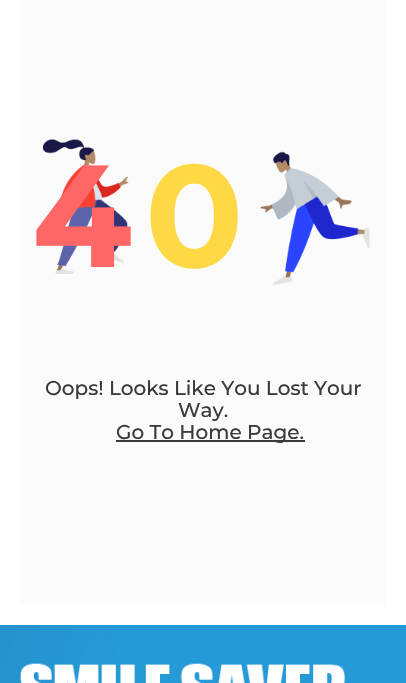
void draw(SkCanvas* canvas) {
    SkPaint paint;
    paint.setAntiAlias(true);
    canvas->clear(0xFFFFFFFF);
    paint.setColor(0xFFFBFBFB);
    canvas->drawRect(SkRect::MakeXYWH(20, 0, 366, 605), paint);
    canvas->drawImageRect(SkImages::DeferredFromEncodedData(SkData::MakeFromFileName("img1.png")), SkRect::MakeXYWH(42, 139, 87, 135), SkSamplingOptions());
    canvas->drawImageRect(SkImages::DeferredFromEncodedData(SkData::MakeFromFileName("img2.png")), SkRect::MakeXYWH(260, 151, 110, 134), SkSamplingOptions());
    SkFont font1(fontMgr->matchFamilyStyle("Montserrat", SkFontStyle::Bold()), 145);
    font1.setSubpixel(true);
    paint.setColor(0xFFFF6666);
    canvas->drawString("4", 32, 267, font1, paint);
    paint.setColor(0xFFFFD845);
    canvas->drawString("0", 145, 267, font1, paint);
    SkFont font2(fontMgr->matchFamilyStyle("Montserrat", SkFontStyle(500, SkFontStyle::kNormal_Width, SkFontStyle::kUpright_Slant)), 20);
    font2.setSubpixel(true);
    paint.setColor(0xFF3A3A3A);
    canvas->drawString("Oops! Looks Like You Lost Your", 45, 395, font2, paint);
    canvas->drawString("Way.", 178, 417, font2, paint);
    canvas->drawRect(SkRect::MakeXYWH(116, 440, 189, 2), paint);
    canvas->drawString("Go To Home Page.", 116, 439, font2, paint);
    canvas->drawImageRect(SkImages::DeferredFromEncodedData(SkData::MakeFromFileName("img3.png")), SkRect::MakeXYWH(0, 625, 406, 58), SkSamplingOptions());
    canvas->drawImageRect(SkImages::DeferredFromEncodedData(SkData::MakeFromFileName("img4.png")), SkRect::MakeXYWH(20, 663, 326, 20), SkSamplingOptions());
}
